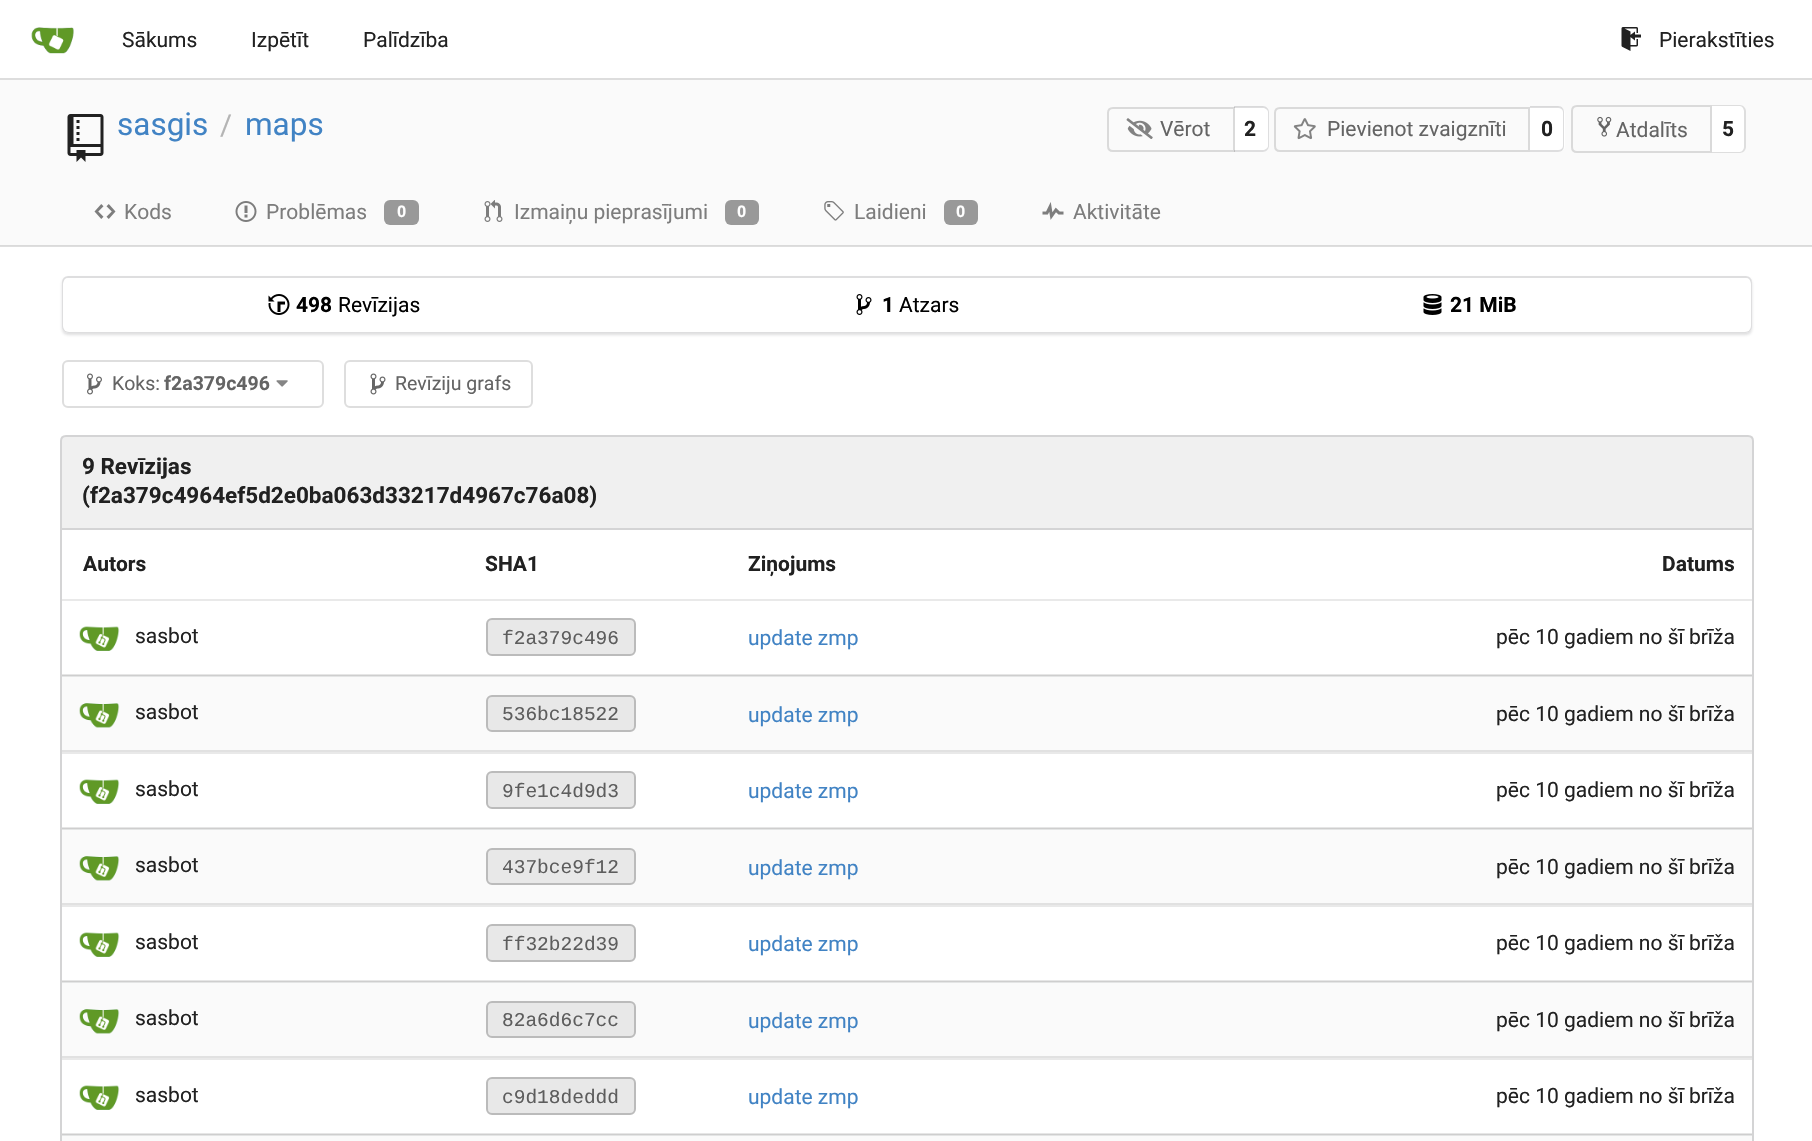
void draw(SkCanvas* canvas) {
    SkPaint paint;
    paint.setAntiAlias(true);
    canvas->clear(0xFFFFFFFF);
    paint.setColor(0xFFFAFAFA);
    canvas->drawRect(SkRect::MakeXYWH(62, 1136, 1690, 5), paint);
    paint.setColor(0xFFE4E5E5);
    canvas->drawRect(SkRect::MakeXYWH(62, 1135, 1690, 1), paint);
    paint.setColor(0xFFFAFAFA);
    canvas->drawRect(SkRect::MakeXYWH(62, 983, 1690, 73), paint);
    paint.setColor(0xFFE4E5E5);
    canvas->drawRect(SkRect::MakeXYWH(62, 982, 1690, 1), paint);
    paint.setColor(0xFFFAFAFA);
    canvas->drawRect(SkRect::MakeXYWH(62, 830, 1690, 73), paint);
    paint.setColor(0xFFE4E5E5);
    canvas->drawRect(SkRect::MakeXYWH(62, 829, 1690, 1), paint);
    paint.setColor(0xFFFAFAFA);
    canvas->drawRect(SkRect::MakeXYWH(62, 677, 1690, 73), paint);
    paint.setColor(0xFFE4E5E5);
    canvas->drawRect(SkRect::MakeXYWH(62, 676, 1690, 1), paint);
    paint.setColor(0xFFDEDEDE);
    canvas->drawRect(SkRect::MakeXYWH(0, 246, 1812, 1), paint);
    paint.setColor(0xFFDDDDDD);
    canvas->drawRect(SkRect::MakeXYWH(0, 78, 1812, 2), paint);
    canvas->drawImageRect(SkImages::DeferredFromEncodedData(SkData::MakeFromFileName("img1.png")), SkRect::MakeXYWH(31, 27, 43, 27), SkSamplingOptions());
    SkFont font1(fontMgr->matchFamilyStyle("Roboto", SkFontStyle::Normal()), 21);
    font1.setSubpixel(true);
    paint.setColor(0xFF212121);
    canvas->drawString("Sākums", 122, 47, font1, paint);
    canvas->drawString("Izpētīt", 251, 47, font1, paint);
    canvas->drawString("Palīdzība", 363, 47, font1, paint);
    canvas->drawImageRect(SkImages::DeferredFromEncodedData(SkData::MakeFromFileName("img2.png")), SkRect::MakeXYWH(1621, 27, 20, 24), SkSamplingOptions());
    canvas->drawString("Pierakstīties", 1659, 47, font1, paint);
    paint.setColor(0xFFFAFAFA);
    canvas->drawRect(SkRect::MakeXYWH(0, 80, 1812, 165), paint);
    paint.setColor(0xFFDADADA);
    canvas->drawRect(SkRect::MakeXYWH(0, 245, 1812, 1), paint);
    canvas->drawImageRect(SkImages::DeferredFromEncodedData(SkData::MakeFromFileName("img3.png")), SkRect::MakeXYWH(67, 114, 37, 48), SkSamplingOptions());
    SkFont font2(fontMgr->matchFamilyStyle("Roboto", SkFontStyle::Normal()), 31.5f);
    font2.setSubpixel(true);
    paint.setColor(0xFF4183C4);
    canvas->drawString("sasgis", 117, 135, font2, paint);
    SkFont font3(fontMgr->matchFamilyStyle("Roboto", SkFontStyle::Normal()), 29);
    font3.setSubpixel(true);
    paint.setColor(0xFFB4B4B4);
    canvas->drawString("/", 220, 135, font3, paint);
    paint.setColor(0xFF4183C4);
    canvas->drawString("maps", 245, 135, font2, paint);
    paint.setStyle(SkPaint::kStroke_Style);
    paint.setStrokeWidth(2);
    paint.setColor(0xFFDADADA);
    canvas->drawPath(SkPathBuilder().moveTo(1113, 108).lineTo(1234, 108).lineTo(1234, 151).lineTo(1113, 151).cubicTo(1110, 151, 1108, 149, 1108, 146).lineTo(1108, 113).cubicTo(1108, 110, 1110, 108, 1113, 108).close().detach(), paint);
    canvas->drawImageRect(SkImages::DeferredFromEncodedData(SkData::MakeFromFileName("img4.png")), SkRect::MakeXYWH(1126, 118, 27, 21), SkSamplingOptions());
    paint.setStyle(SkPaint::kFill_Style);
    paint.setColor(0xFF646464);
    canvas->drawString("Vērot", 1160, 136, font1, paint);
    paint.setColor(0xFFFFFFFF);
    canvas->drawPath(SkPathBuilder().moveTo(1235, 107).lineTo(1263, 107).cubicTo(1266.5f, 107, 1269, 109.5f, 1269, 113).lineTo(1269, 146).cubicTo(1269, 149.5f, 1266.5f, 152, 1263, 152).lineTo(1235, 152).close().detach(), paint);
    paint.setColor(0x26222426);
    canvas->drawPath(SkPathBuilder(SkPathFillType::kEvenOdd).moveTo(1234, 106).lineTo(1263, 106).cubicTo(1266, 106, 1269, 109, 1269, 112).lineTo(1269, 146).cubicTo(1269, 149, 1266, 152, 1263, 152).lineTo(1234, 152).close().moveTo(1234, 108).lineTo(1263, 108).cubicTo(1265, 108, 1268, 110, 1268, 112).lineTo(1268, 146).cubicTo(1268, 148, 1265, 150, 1263, 150).lineTo(1234, 150).close().detach(), paint);
    SkFont font4(fontMgr->matchFamilyStyle("Roboto", SkFontStyle::Bold()), 21);
    font4.setSubpixel(true);
    paint.setColor(0xFF212121);
    canvas->drawString("2", 1244, 136, font4, paint);
    paint.setStyle(SkPaint::kStroke_Style);
    paint.setColor(0xFFDADADA);
    canvas->drawPath(SkPathBuilder().moveTo(1280, 108).lineTo(1529, 108).lineTo(1529, 151).lineTo(1280, 151).cubicTo(1277, 151, 1275, 149, 1275, 146).lineTo(1275, 113).cubicTo(1275, 110, 1277, 108, 1280, 108).close().detach(), paint);
    canvas->drawImageRect(SkImages::DeferredFromEncodedData(SkData::MakeFromFileName("img5.png")), SkRect::MakeXYWH(1293, 118, 23, 22), SkSamplingOptions());
    paint.setStyle(SkPaint::kFill_Style);
    paint.setColor(0xFF646464);
    canvas->drawString("Pievienot zvaigznīti", 1327, 136, font1, paint);
    paint.setColor(0xFFFFFFFF);
    canvas->drawPath(SkPathBuilder().moveTo(1530, 107).lineTo(1559, 107).cubicTo(1562.5f, 107, 1565, 109.5f, 1565, 113).lineTo(1565, 146).cubicTo(1565, 149.5f, 1562.5f, 152, 1559, 152).lineTo(1530, 152).close().detach(), paint);
    paint.setColor(0x26222426);
    canvas->drawPath(SkPathBuilder(SkPathFillType::kEvenOdd).moveTo(1530, 106).lineTo(1558, 106).cubicTo(1562, 106, 1564, 109, 1564, 112).lineTo(1564, 146).cubicTo(1564, 149, 1562, 152, 1558, 152).lineTo(1530, 152).close().moveTo(1530, 108).lineTo(1558, 108).cubicTo(1561, 108, 1563, 110, 1563, 112).lineTo(1563, 146).cubicTo(1563, 148, 1561, 150, 1558, 150).lineTo(1530, 150).close().detach(), paint);
    paint.setColor(0xFF212121);
    canvas->drawString("0", 1541, 136, font4, paint);
    paint.setStyle(SkPaint::kStroke_Style);
    paint.setColor(0xFFDADADA);
    canvas->drawPath(SkPathBuilder().moveTo(1577, 106).lineTo(1711, 106).lineTo(1711, 152).lineTo(1577, 152).cubicTo(1574, 152, 1572, 150, 1572, 147).lineTo(1572, 111).cubicTo(1572, 108, 1574, 106, 1577, 106).close().detach(), paint);
    canvas->drawImageRect(SkImages::DeferredFromEncodedData(SkData::MakeFromFileName("img6.png")), SkRect::MakeXYWH(1597, 116, 15, 21), SkSamplingOptions());
    paint.setStyle(SkPaint::kFill_Style);
    paint.setColor(0xFF646464);
    canvas->drawString("Atdalīts", 1616, 137, font1, paint);
    paint.setColor(0xFFFFFFFF);
    canvas->drawPath(SkPathBuilder().moveTo(1712, 105).lineTo(1740, 105).cubicTo(1743.5f, 105, 1746, 107.5f, 1746, 111).lineTo(1746, 147).cubicTo(1746, 150.5f, 1743.5f, 153, 1740, 153).lineTo(1712, 153).close().detach(), paint);
    paint.setColor(0xFFDEDEDE);
    canvas->drawPath(SkPathBuilder(SkPathFillType::kEvenOdd).moveTo(1712, 105).lineTo(1740, 105).cubicTo(1743, 105, 1746, 108, 1746, 111).lineTo(1746, 147).cubicTo(1746, 150, 1743, 153, 1740, 153).lineTo(1712, 153).close().moveTo(1712, 106).lineTo(1740, 106).cubicTo(1742, 106, 1744, 109, 1744, 111).lineTo(1744, 147).cubicTo(1744, 149, 1742, 152, 1740, 152).lineTo(1712, 152).close().detach(), paint);
    paint.setColor(0xFF212121);
    canvas->drawString("5", 1722, 136, font4, paint);
    canvas->drawImageRect(SkImages::DeferredFromEncodedData(SkData::MakeFromFileName("img7.png")), SkRect::MakeXYWH(94, 204, 22, 15), SkSamplingOptions());
    paint.setColor(0xFF7D7D7D);
    canvas->drawString("Kods", 124, 219, font1, paint);
    canvas->drawImageRect(SkImages::DeferredFromEncodedData(SkData::MakeFromFileName("img8.png")), SkRect::MakeXYWH(235, 201, 22, 21), SkSamplingOptions());
    canvas->drawString("Problēmas", 266, 219, font1, paint);
    paint.setColor(0xFF999999);
    canvas->drawRoundRect(SkRect::MakeXYWH(384, 200, 35, 25), 6, 6, paint);
    SkFont font5(fontMgr->matchFamilyStyle("Roboto", SkFontStyle::Bold()), 16);
    font5.setSubpixel(true);
    paint.setColor(0xFFFFFFFF);
    canvas->drawString("0", 397, 217, font5, paint);
    canvas->drawImageRect(SkImages::DeferredFromEncodedData(SkData::MakeFromFileName("img9.png")), SkRect::MakeXYWH(484, 200, 19, 22), SkSamplingOptions());
    paint.setColor(0xFF7D7D7D);
    canvas->drawString("Izmaiņu pieprasījumi", 514, 219, font1, paint);
    paint.setColor(0xFF999999);
    canvas->drawRoundRect(SkRect::MakeXYWH(725, 200, 34, 25), 6, 6, paint);
    paint.setColor(0xFFFFFFFF);
    canvas->drawString("0", 737, 217, font5, paint);
    canvas->drawImageRect(SkImages::DeferredFromEncodedData(SkData::MakeFromFileName("img10.png")), SkRect::MakeXYWH(824, 201, 20, 20), SkSamplingOptions());
    paint.setColor(0xFF7D7D7D);
    canvas->drawString("Laidieni", 854, 219, font1, paint);
    paint.setColor(0xFF999999);
    canvas->drawRoundRect(SkRect::MakeXYWH(944, 200, 34, 25), 6, 6, paint);
    paint.setColor(0xFFFFFFFF);
    canvas->drawString("0", 956, 217, font5, paint);
    canvas->drawImageRect(SkImages::DeferredFromEncodedData(SkData::MakeFromFileName("img11.png")), SkRect::MakeXYWH(1042, 202, 22, 18), SkSamplingOptions());
    paint.setColor(0xFF7D7D7D);
    canvas->drawString("Aktivitāte", 1073, 219, font1, paint);
    canvas->save();
    canvas->clipPath(SkPathBuilder(SkPathFillType::kEvenOdd).moveTo(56, 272).lineTo(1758, 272).lineTo(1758, 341).lineTo(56, 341).close().moveTo(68, 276).lineTo(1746, 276).cubicTo(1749.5f, 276, 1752, 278.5f, 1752, 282).lineTo(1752, 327).cubicTo(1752, 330.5f, 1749.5f, 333, 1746, 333).lineTo(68, 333).cubicTo(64.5f, 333, 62, 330.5f, 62, 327).lineTo(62, 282).cubicTo(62, 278.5f, 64.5f, 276, 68, 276).close().detach(), true);
    paint.setColor(0x26222426);
    paint.setMaskFilter(SkMaskFilter::MakeBlur(kNormal_SkBlurStyle, 1.5f));
    canvas->drawRoundRect(SkRect::MakeXYWH(62, 278, 1690, 57), 6, 6, paint);
    paint.setMaskFilter(nullptr);
    canvas->restore();
    paint.setStyle(SkPaint::kStroke_Style);
    canvas->drawRoundRect(SkRect::MakeXYWH(63, 277, 1688, 55), 5, 5, paint);
    paint.setStyle(SkPaint::kFill_Style);
    paint.setColor(0xFFFFFFFF);
    canvas->drawRoundRect(SkRect::MakeXYWH(63, 278, 1688, 54), 6, 6, paint);
    canvas->drawImageRect(SkImages::DeferredFromEncodedData(SkData::MakeFromFileName("img12.png")), SkRect::MakeXYWH(268, 294, 22, 21), SkSamplingOptions());
    paint.setColor(0xFF000000);
    canvas->drawString("498", 296, 312, font4, paint);
    canvas->drawString("Revīzijas", 338, 312, font1, paint);
    canvas->drawImageRect(SkImages::DeferredFromEncodedData(SkData::MakeFromFileName("img13.png")), SkRect::MakeXYWH(856, 294, 16, 21), SkSamplingOptions());
    canvas->drawString("1", 882, 312, font4, paint);
    canvas->drawString("Atzars", 899, 312, font1, paint);
    canvas->drawImageRect(SkImages::DeferredFromEncodedData(SkData::MakeFromFileName("img14.png")), SkRect::MakeXYWH(1423, 294, 19, 21), SkSamplingOptions());
    canvas->drawString("21 MiB", 1450, 312, font4, paint);
    paint.setStyle(SkPaint::kStroke_Style);
    paint.setColor(0xFFDEDEDE);
    canvas->drawRoundRect(SkRect::MakeXYWH(63, 361, 260, 46), 5, 5, paint);
    canvas->drawImageRect(SkImages::DeferredFromEncodedData(SkData::MakeFromFileName("img15.png")), SkRect::MakeXYWH(87, 373, 15, 22), SkSamplingOptions());
    SkFont font6(fontMgr->matchFamilyStyle("Roboto", SkFontStyle::Normal()), 19.5f);
    font6.setSubpixel(true);
    paint.setStyle(SkPaint::kFill_Style);
    paint.setColor(0xFF646464);
    canvas->drawString("Koks:", 112, 390, font6, paint);
    SkFont font7(fontMgr->matchFamilyStyle("Roboto", SkFontStyle::Bold()), 19.5f);
    font7.setSubpixel(true);
    canvas->drawString("f2a379c496", 164, 390, font7, paint);
    canvas->drawImageRect(SkImages::DeferredFromEncodedData(SkData::MakeFromFileName("img16.png")), SkRect::MakeXYWH(276, 380, 12, 7), SkSamplingOptions());
    paint.setStyle(SkPaint::kStroke_Style);
    paint.setColor(0xFFDEDEDE);
    canvas->drawRoundRect(SkRect::MakeXYWH(345, 361, 187, 46), 5, 5, paint);
    canvas->drawImageRect(SkImages::DeferredFromEncodedData(SkData::MakeFromFileName("img17.png")), SkRect::MakeXYWH(370, 373, 16, 22), SkSamplingOptions());
    paint.setStyle(SkPaint::kFill_Style);
    paint.setColor(0xFF646464);
    canvas->drawString("Revīziju grafs", 395, 390, font6, paint);
    paint.setColor(0xFFF0F0F0);
    canvas->drawPath(SkPathBuilder().moveTo(66, 436).lineTo(1748, 436).cubicTo(1751, 436, 1753, 438, 1753, 441).lineTo(1753, 529).lineTo(61, 529).lineTo(61, 441).cubicTo(61, 438, 63, 436, 66, 436).close().detach(), paint);
    paint.setStyle(SkPaint::kStroke_Style);
    paint.setColor(0xFFD4D4D5);
    canvas->drawPath(SkPathBuilder().moveTo(66, 436).lineTo(1748, 436).cubicTo(1751, 436, 1753, 438, 1753, 441).lineTo(1753, 529).lineTo(61, 529).lineTo(61, 441).cubicTo(61, 438, 63, 436, 66, 436).close().detach(), paint);
    SkFont font8(fontMgr->matchFamilyStyle("Roboto", SkFontStyle::Bold()), 22.5f);
    font8.setSubpixel(true);
    paint.setStyle(SkPaint::kFill_Style);
    paint.setColor(0xFF212121);
    canvas->drawString("9 Revīzijas", 82, 474, font8, paint);
    canvas->drawString("(f2a379c4964ef5d2e0ba063d33217d4967c76a08)", 82, 503, font8, paint);
    paint.setColor(0xFFD4D4D5);
    canvas->drawRect(SkRect::MakeXYWH(1752, 530, 2, 611), paint);
    canvas->drawRect(SkRect::MakeXYWH(60, 530, 2, 611), paint);
    paint.setColor(0xFFE9E9E9);
    canvas->drawRect(SkRect::MakeXYWH(62, 599, 1690, 2), paint);
    paint.setColor(0xFF212121);
    canvas->drawString("Autors", 83, 571, font4, paint);
    canvas->drawString("SHA1", 485, 571, font4, paint);
    canvas->drawString("Ziņojums", 748, 571, font4, paint);
    canvas->drawString("Datums", 1662, 571, font4, paint);
    paint.setColor(0xFFE6E6E6);
    canvas->drawRect(SkRect::MakeXYWH(62, 674, 1690, 1), paint);
    paint.setColor(0xFFCECECE);
    canvas->drawRect(SkRect::MakeXYWH(62, 675, 1690, 1), paint);
    canvas->drawImageRect(SkImages::DeferredFromEncodedData(SkData::MakeFromFileName("img18.png")), SkRect::MakeXYWH(79, 626, 41, 25), SkSamplingOptions());
    paint.setColor(0xFF212121);
    canvas->drawString("sasbot", 135, 643, font1, paint);
    paint.setColor(0xFFE8E8E8);
    canvas->drawRoundRect(SkRect::MakeXYWH(487, 619, 148, 36), 5, 5, paint);
    paint.setStyle(SkPaint::kStroke_Style);
    paint.setColor(0xFFBBBBBB);
    canvas->drawRoundRect(SkRect::MakeXYWH(487, 619, 148, 36), 5, 5, paint);
    SkFont font9(fontMgr->matchFamilyStyle("Liberation Mono", SkFontStyle::Normal()), 19.5f);
    font9.setSubpixel(true);
    paint.setStyle(SkPaint::kFill_Style);
    paint.setColor(0xFF5D5D5D);
    canvas->drawString("f2a379c496", 502, 644, font9, paint);
    paint.setColor(0xFF4183C4);
    canvas->drawString("update zmp", 748, 645, font1, paint);
    paint.setColor(0xFF212121);
    canvas->drawString("pēc 10 gadiem no šī brīža", 1496, 644, font1, paint);
    paint.setColor(0xFFE1E1E1);
    canvas->drawRect(SkRect::MakeXYWH(62, 750, 1690, 2), paint);
    canvas->drawImageRect(SkImages::DeferredFromEncodedData(SkData::MakeFromFileName("img19.png")), SkRect::MakeXYWH(79, 703, 41, 25), SkSamplingOptions());
    paint.setColor(0xFF212121);
    canvas->drawString("sasbot", 135, 719, font1, paint);
    paint.setColor(0xFFE8E8E8);
    canvas->drawRoundRect(SkRect::MakeXYWH(487, 696, 148, 35), 5, 5, paint);
    paint.setStyle(SkPaint::kStroke_Style);
    paint.setColor(0xFFBBBBBB);
    canvas->drawRoundRect(SkRect::MakeXYWH(487, 696, 148, 35), 5, 5, paint);
    paint.setStyle(SkPaint::kFill_Style);
    paint.setColor(0xFF5D5D5D);
    canvas->drawString("536bc18522", 502, 720, font9, paint);
    paint.setColor(0xFF4183C4);
    canvas->drawString("update zmp", 748, 722, font1, paint);
    paint.setColor(0xFF212121);
    canvas->drawString("pēc 10 gadiem no šī brīža", 1496, 721, font1, paint);
    paint.setColor(0xFFE6E6E6);
    canvas->drawRect(SkRect::MakeXYWH(62, 827, 1690, 1), paint);
    paint.setColor(0xFFCECECE);
    canvas->drawRect(SkRect::MakeXYWH(62, 828, 1690, 1), paint);
    paint.setColor(0xFFE9E9E9);
    canvas->drawRect(SkRect::MakeXYWH(62, 752, 1690, 2), paint);
    canvas->drawImageRect(SkImages::DeferredFromEncodedData(SkData::MakeFromFileName("img20.png")), SkRect::MakeXYWH(79, 779, 41, 25), SkSamplingOptions());
    paint.setColor(0xFF212121);
    canvas->drawString("sasbot", 135, 796, font1, paint);
    paint.setColor(0xFFE8E8E8);
    canvas->drawRoundRect(SkRect::MakeXYWH(487, 772, 148, 36), 5, 5, paint);
    paint.setStyle(SkPaint::kStroke_Style);
    paint.setColor(0xFFBBBBBB);
    canvas->drawRoundRect(SkRect::MakeXYWH(487, 772, 148, 36), 5, 5, paint);
    paint.setStyle(SkPaint::kFill_Style);
    paint.setColor(0xFF5D5D5D);
    canvas->drawString("9fe1c4d9d3", 502, 797, font9, paint);
    paint.setColor(0xFF4183C4);
    canvas->drawString("update zmp", 748, 798, font1, paint);
    paint.setColor(0xFF212121);
    canvas->drawString("pēc 10 gadiem no šī brīža", 1496, 797, font1, paint);
    paint.setColor(0xFFE1E1E1);
    canvas->drawRect(SkRect::MakeXYWH(62, 903, 1690, 2), paint);
    canvas->drawImageRect(SkImages::DeferredFromEncodedData(SkData::MakeFromFileName("img19.png")), SkRect::MakeXYWH(79, 856, 41, 25), SkSamplingOptions());
    paint.setColor(0xFF212121);
    canvas->drawString("sasbot", 135, 872, font1, paint);
    paint.setColor(0xFFE8E8E8);
    canvas->drawRoundRect(SkRect::MakeXYWH(487, 849, 148, 35), 5, 5, paint);
    paint.setStyle(SkPaint::kStroke_Style);
    paint.setColor(0xFFBBBBBB);
    canvas->drawRoundRect(SkRect::MakeXYWH(487, 849, 148, 35), 5, 5, paint);
    paint.setStyle(SkPaint::kFill_Style);
    paint.setColor(0xFF5D5D5D);
    canvas->drawString("437bce9f12", 502, 873, font9, paint);
    paint.setColor(0xFF4183C4);
    canvas->drawString("update zmp", 748, 875, font1, paint);
    paint.setColor(0xFF212121);
    canvas->drawString("pēc 10 gadiem no šī brīža", 1496, 874, font1, paint);
    paint.setColor(0xFFE6E6E6);
    canvas->drawRect(SkRect::MakeXYWH(62, 980, 1690, 1), paint);
    paint.setColor(0xFFCECECE);
    canvas->drawRect(SkRect::MakeXYWH(62, 981, 1690, 1), paint);
    paint.setColor(0xFFE9E9E9);
    canvas->drawRect(SkRect::MakeXYWH(62, 905, 1690, 2), paint);
    canvas->drawImageRect(SkImages::DeferredFromEncodedData(SkData::MakeFromFileName("img18.png")), SkRect::MakeXYWH(79, 932, 41, 25), SkSamplingOptions());
    paint.setColor(0xFF212121);
    canvas->drawString("sasbot", 135, 949, font1, paint);
    paint.setColor(0xFFE8E8E8);
    canvas->drawRoundRect(SkRect::MakeXYWH(487, 925, 148, 36), 5, 5, paint);
    paint.setStyle(SkPaint::kStroke_Style);
    paint.setColor(0xFFBBBBBB);
    canvas->drawRoundRect(SkRect::MakeXYWH(487, 925, 148, 36), 5, 5, paint);
    paint.setStyle(SkPaint::kFill_Style);
    paint.setColor(0xFF5D5D5D);
    canvas->drawString("ff32b22d39", 502, 950, font9, paint);
    paint.setColor(0xFF4183C4);
    canvas->drawString("update zmp", 748, 951, font1, paint);
    paint.setColor(0xFF212121);
    canvas->drawString("pēc 10 gadiem no šī brīža", 1496, 950, font1, paint);
    paint.setColor(0xFFE1E1E1);
    canvas->drawRect(SkRect::MakeXYWH(62, 1056, 1690, 2), paint);
    canvas->drawImageRect(SkImages::DeferredFromEncodedData(SkData::MakeFromFileName("img19.png")), SkRect::MakeXYWH(79, 1009, 41, 25), SkSamplingOptions());
    paint.setColor(0xFF212121);
    canvas->drawString("sasbot", 135, 1025, font1, paint);
    paint.setColor(0xFFE8E8E8);
    canvas->drawRoundRect(SkRect::MakeXYWH(487, 1002, 148, 35), 5, 5, paint);
    paint.setStyle(SkPaint::kStroke_Style);
    paint.setColor(0xFFBBBBBB);
    canvas->drawRoundRect(SkRect::MakeXYWH(487, 1002, 148, 35), 5, 5, paint);
    paint.setStyle(SkPaint::kFill_Style);
    paint.setColor(0xFF5D5D5D);
    canvas->drawString("82a6d6c7cc", 502, 1026, font9, paint);
    paint.setColor(0xFF4183C4);
    canvas->drawString("update zmp", 748, 1028, font1, paint);
    paint.setColor(0xFF212121);
    canvas->drawString("pēc 10 gadiem no šī brīža", 1496, 1027, font1, paint);
    paint.setColor(0xFFE6E6E6);
    canvas->drawRect(SkRect::MakeXYWH(62, 1133, 1690, 1), paint);
    paint.setColor(0xFFCECECE);
    canvas->drawRect(SkRect::MakeXYWH(62, 1134, 1690, 1), paint);
    paint.setColor(0xFFE9E9E9);
    canvas->drawRect(SkRect::MakeXYWH(62, 1058, 1690, 2), paint);
    canvas->drawImageRect(SkImages::DeferredFromEncodedData(SkData::MakeFromFileName("img18.png")), SkRect::MakeXYWH(79, 1085, 41, 25), SkSamplingOptions());
    paint.setColor(0xFF212121);
    canvas->drawString("sasbot", 135, 1102, font1, paint);
    paint.setColor(0xFFE8E8E8);
    canvas->drawRoundRect(SkRect::MakeXYWH(487, 1078, 148, 36), 5, 5, paint);
    paint.setStyle(SkPaint::kStroke_Style);
    paint.setColor(0xFFBBBBBB);
    canvas->drawRoundRect(SkRect::MakeXYWH(487, 1078, 148, 36), 5, 5, paint);
    paint.setStyle(SkPaint::kFill_Style);
    paint.setColor(0xFF5D5D5D);
    canvas->drawString("c9d18deddd", 502, 1103, font9, paint);
    paint.setColor(0xFF4183C4);
    canvas->drawString("update zmp", 748, 1104, font1, paint);
    paint.setColor(0xFF212121);
    canvas->drawString("pēc 10 gadiem no šī brīža", 1496, 1103, font1, paint);
}
